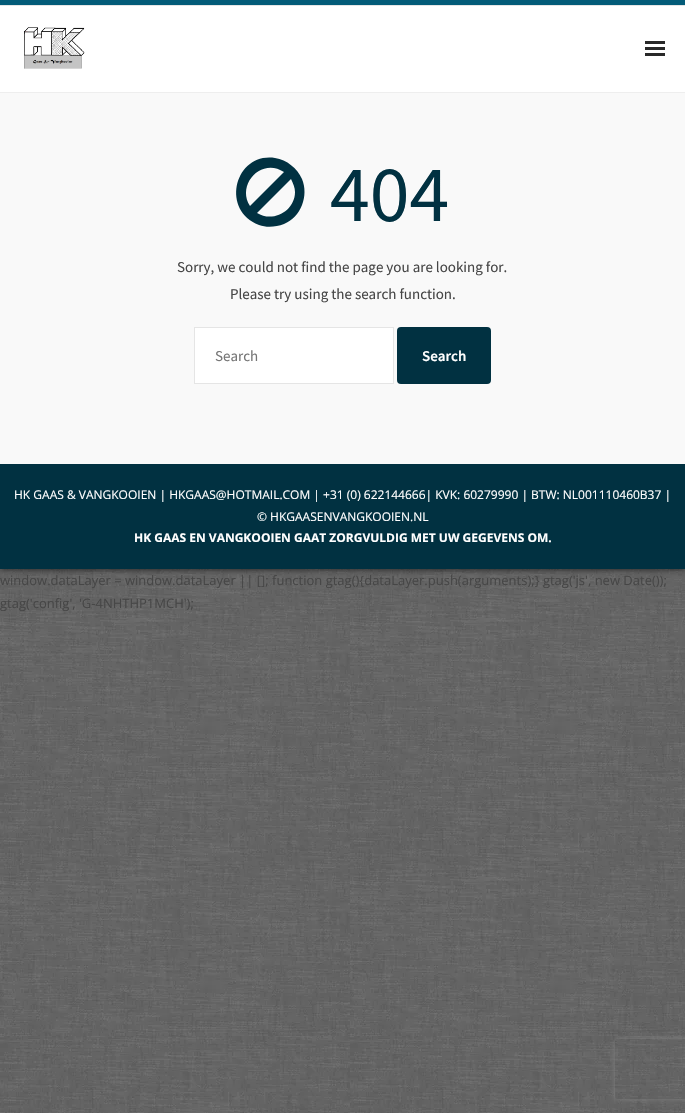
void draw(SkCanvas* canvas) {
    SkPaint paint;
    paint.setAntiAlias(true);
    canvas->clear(0xFFFFFFFF);
    canvas->drawImageRect(SkImages::DeferredFromEncodedData(SkData::MakeFromFileName("img1.png")), SkRect::MakeXYWH(0, 569, 685, 544), SkSamplingOptions());
    paint.setColor(0xBF000000);
    paint.setMaskFilter(SkMaskFilter::MakeBlur(kNormal_SkBlurStyle, 3.5f));
    canvas->drawRect(SkRect::MakeXYWH(0, 0, 685, 569), paint);
    paint.setMaskFilter(nullptr);
    paint.setColor(0xFFFFFFFF);
    canvas->drawRect(SkRect::MakeXYWH(0, 6, 685, 86), paint);
    paint.setColor(0xFF035B78);
    canvas->drawRect(SkRect::MakeXYWH(0, 0, 685, 5), paint);
    paint.setColor(0xFFEEEEEE);
    canvas->drawRect(SkRect::MakeXYWH(0, 92, 685, 1), paint);
    paint.setColor(0xFFE5E5E5);
    canvas->drawRect(SkRect::MakeXYWH(0, 5, 685, 1), paint);
    canvas->drawImageRect(SkImages::DeferredFromEncodedData(SkData::MakeFromFileName("img2.png")), SkRect::MakeXYWH(24, 27, 61, 42), SkSamplingOptions());
    paint.setColor(0xFF292929);
    canvas->drawRect(SkRect::MakeXYWH(645, 41, 20, 3), paint);
    canvas->drawRect(SkRect::MakeXYWH(645, 47, 20, 3), paint);
    canvas->drawRect(SkRect::MakeXYWH(645, 53, 20, 3), paint);
    paint.setColor(0xFFF9F9F9);
    canvas->drawRect(SkRect::MakeXYWH(0, 93, 685, 371), paint);
    paint.setColor(0xFF013141);
    canvas->drawPath(SkPathBuilder().moveTo(295, 192).cubicTo(295, 188, 293, 183, 291, 179).lineTo(257, 213).cubicTo(273, 223, 295, 211, 295, 192).close().moveTo(250, 206).lineTo(284, 172).cubicTo(262, 157, 236, 184, 250, 206).close().moveTo(302, 179).cubicTo(309, 196, 301, 217, 284, 224).cubicTo(276, 227, 267, 228, 259, 225).cubicTo(220, 210, 235, 152, 275, 158).cubicTo(287, 160, 297, 168, 302, 179).close().detach(), paint);
    SkFont font1(fontMgr->matchFamilyStyle("Source Sans Pro", SkFontStyle::Normal()), 80);
    font1.setSubpixel(true);
    canvas->drawString("404", 330, 221, font1, paint);
    SkFont font2(fontMgr->matchFamilyStyle("Source Sans Pro", SkFontStyle::Normal()), 15);
    font2.setSubpixel(true);
    paint.setColor(0xFF464646);
    canvas->drawString("Sorry, we could not find the page you are looking for.", 177, 272, font2, paint);
    canvas->drawString("Please try using the search function.", 230, 299, font2, paint);
    paint.setColor(0xFFFFFFFF);
    canvas->drawRect(SkRect::MakeXYWH(194.5f, 327.5f, 199, 56), paint);
    paint.setStyle(SkPaint::kStroke_Style);
    paint.setStrokeWidth(1);
    paint.setColor(0xFFE5E5E5);
    canvas->drawRect(SkRect::MakeXYWH(194.5f, 327.5f, 199, 56), paint);
    paint.setStyle(SkPaint::kFill_Style);
    paint.setColor(0xFF757575);
    canvas->drawString("Search", 215, 361, font2, paint);
    paint.setColor(0xFF013141);
    canvas->drawRoundRect(SkRect::MakeXYWH(397, 327, 94, 57), 4, 4, paint);
    SkFont font3(fontMgr->matchFamilyStyle("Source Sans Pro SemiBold", SkFontStyle(600, SkFontStyle::kNormal_Width, SkFontStyle::kUpright_Slant)), 15);
    font3.setSubpixel(true);
    paint.setColor(0xFFFFFFFF);
    canvas->drawString("Search", 422, 361, font3, paint);
    paint.setColor(0xFF013141);
    canvas->drawRect(SkRect::MakeXYWH(0, 464, 685, 105), paint);
    SkFont font4(fontMgr->matchFamilyStyle("Open Sans", SkFontStyle::Normal()), 12);
    font4.setSubpixel(true);
    paint.setColor(0xFFFFFFFF);
    canvas->drawString("HK GAAS & VANGKOOIEN | HKGAAS@HOTMAIL.COM | +31 (0) 622144666| KVK: 60279990 | BTW: NL001110460B37 |", 14, 499, font4, paint);
    canvas->drawString("© HKGAASENVANGKOOIEN.NL", 257, 521, font4, paint);
    SkFont font5(fontMgr->matchFamilyStyle("Open Sans", SkFontStyle::Bold()), 12);
    font5.setSubpixel(true);
    canvas->drawString("HK GAAS EN VANGKOOIEN GAAT ZORGVULDIG MET UW GEGEVENS OM.", 134, 542, font5, paint);
    SkFont font6(fontMgr->matchFamilyStyle("Open Sans", SkFontStyle::Normal()), 13);
    font6.setSubpixel(true);
    paint.setColor(0xFF464646);
    canvas->drawString("window.dataLayer = window.dataLayer || []; function gtag(){dataLayer.push(arguments);} gtag('js', new Date());", 0, 585, font6, paint);
    canvas->drawString("gtag('config', 'G-4NHTHP1MCH');", 0, 608, font6, paint);
    canvas->save();
    canvas->clipPath(SkPathBuilder(SkPathFillType::kEvenOdd).moveTo(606, 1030).lineTo(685, 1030).lineTo(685, 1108).lineTo(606, 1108).close().moveTo(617, 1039).lineTo(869, 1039).cubicTo(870, 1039, 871, 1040, 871, 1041).lineTo(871, 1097).cubicTo(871, 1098, 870, 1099, 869, 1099).lineTo(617, 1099).cubicTo(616, 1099, 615, 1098, 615, 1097).lineTo(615, 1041).cubicTo(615, 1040, 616, 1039, 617, 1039).close().detach(), true);
    paint.setColor(0xFF808080);
    paint.setMaskFilter(SkMaskFilter::MakeBlur(kNormal_SkBlurStyle, 2.5f));
    canvas->drawRoundRect(SkRect::MakeXYWH(615, 1039, 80, 60), 2, 2, paint);
    paint.setMaskFilter(nullptr);
    canvas->restore();
}
